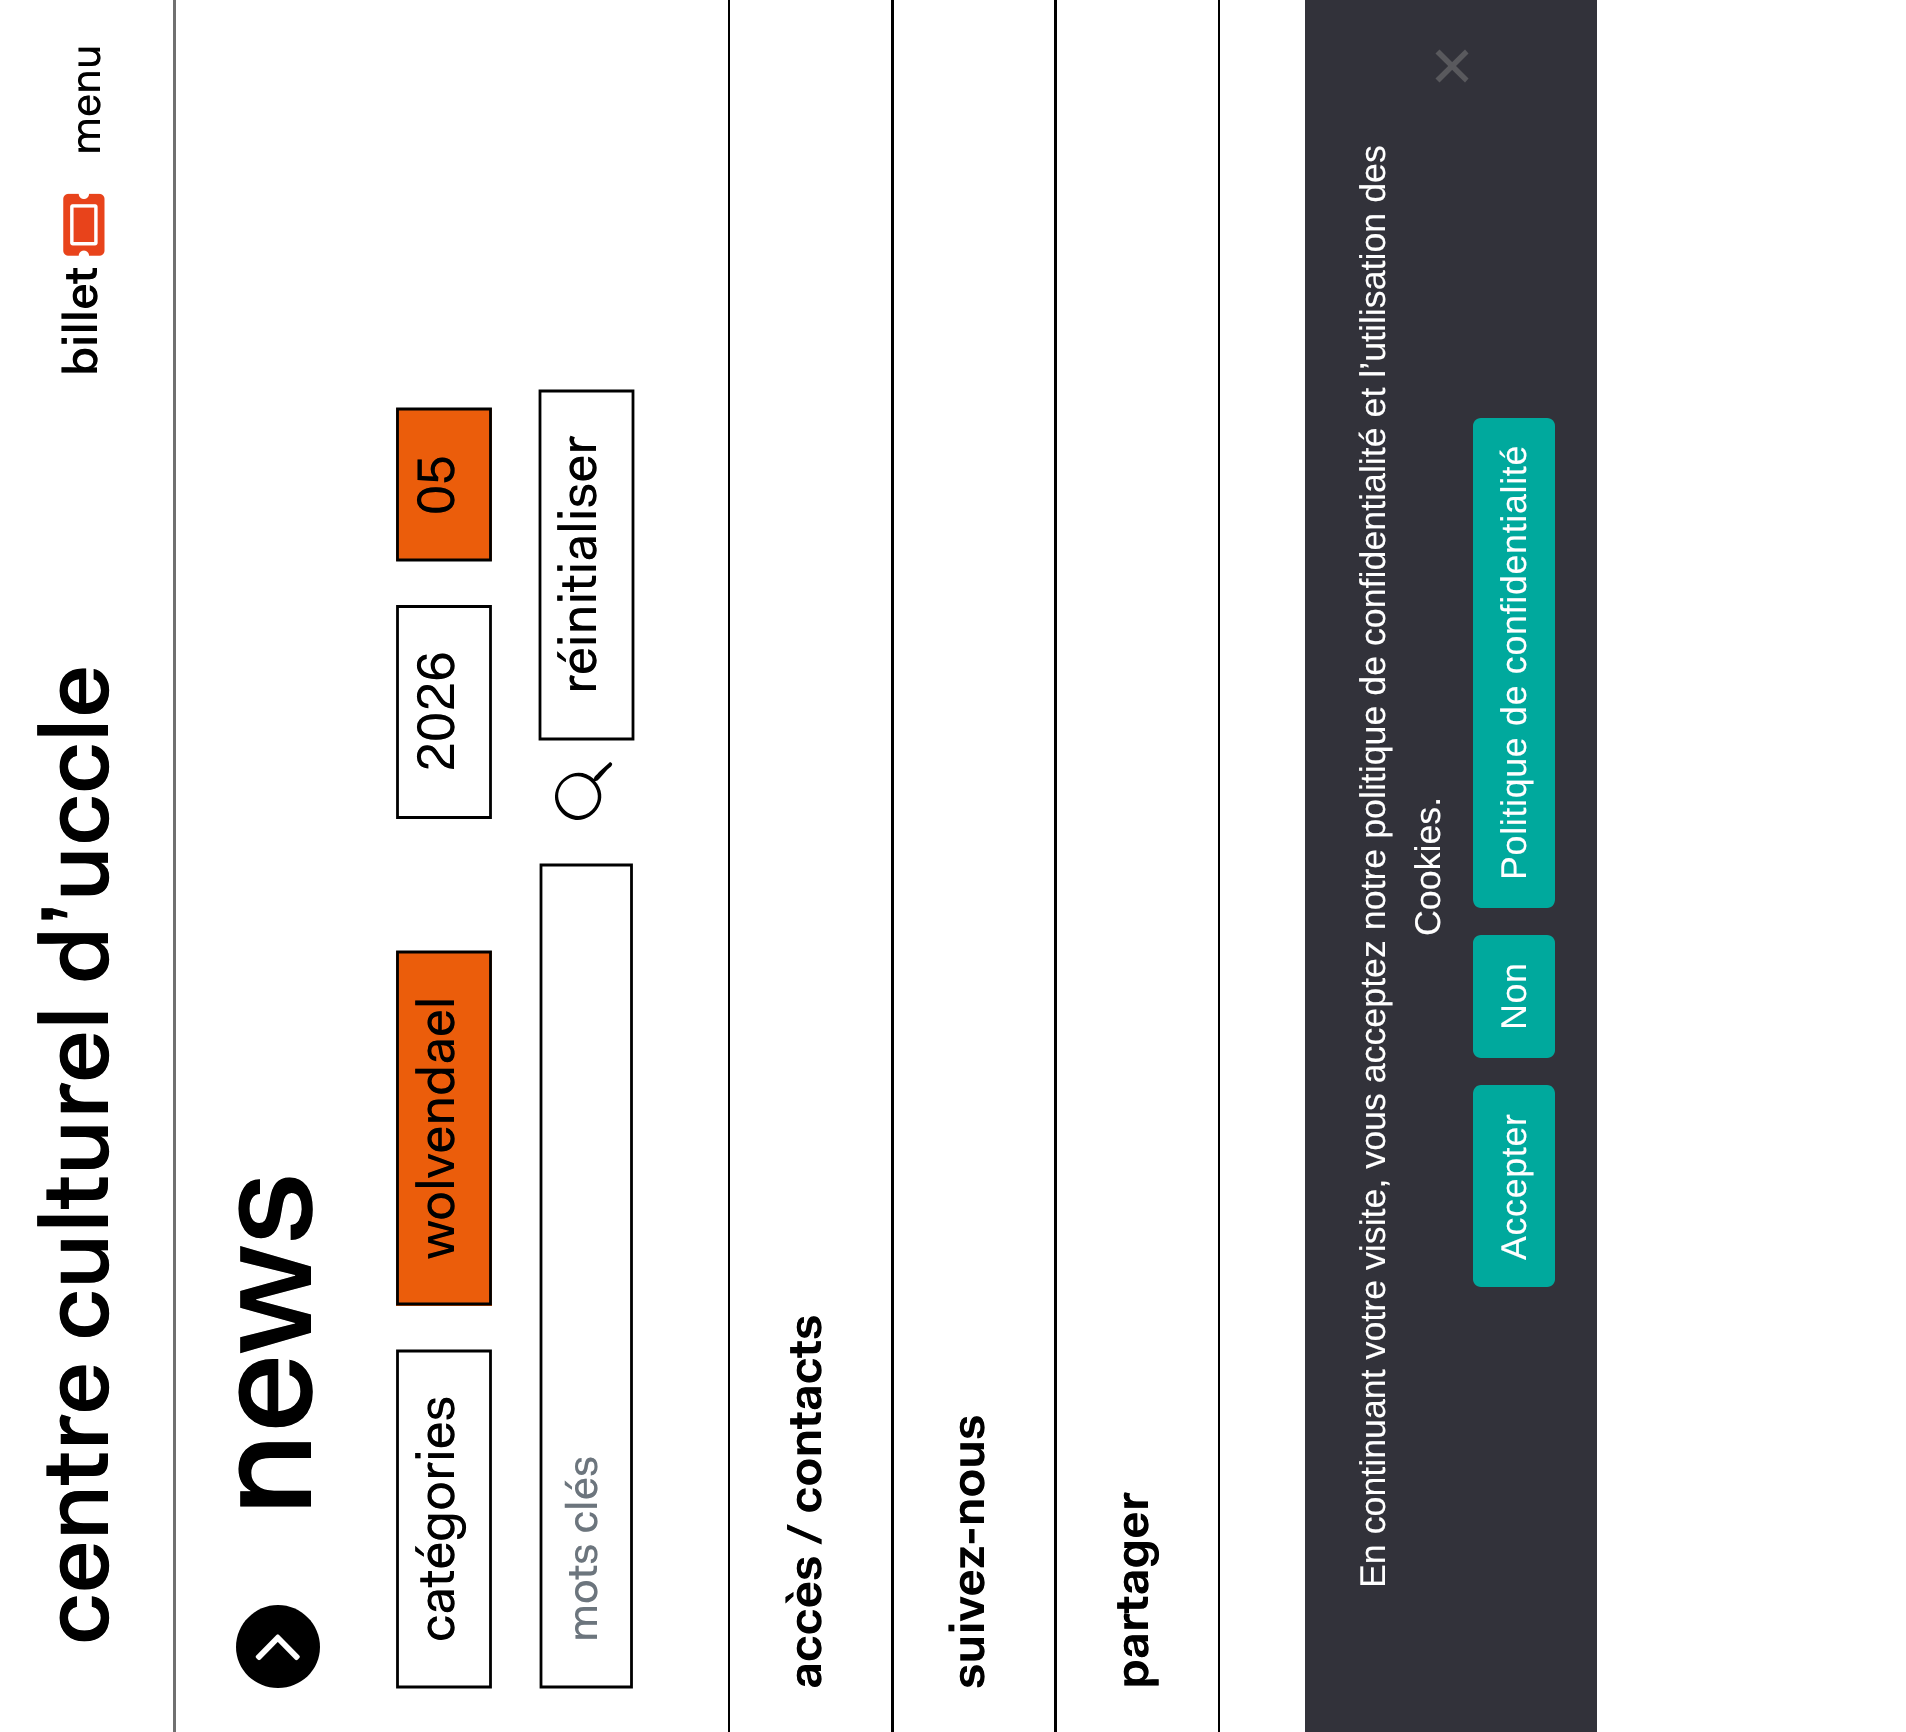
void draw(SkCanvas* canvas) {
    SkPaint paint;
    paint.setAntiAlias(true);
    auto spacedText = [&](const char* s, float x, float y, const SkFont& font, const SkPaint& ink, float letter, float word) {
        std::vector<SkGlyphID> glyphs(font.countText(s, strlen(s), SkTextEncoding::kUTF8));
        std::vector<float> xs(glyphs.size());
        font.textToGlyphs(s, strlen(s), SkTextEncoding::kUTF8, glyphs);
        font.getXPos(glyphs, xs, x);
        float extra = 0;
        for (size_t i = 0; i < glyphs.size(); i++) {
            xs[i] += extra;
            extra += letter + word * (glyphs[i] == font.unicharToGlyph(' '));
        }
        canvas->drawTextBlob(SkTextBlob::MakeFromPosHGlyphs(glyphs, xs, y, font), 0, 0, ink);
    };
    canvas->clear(0xFFFFFFFF);
    paint.setColor(0xFF707070);
    canvas->drawRect(SkRect::MakeXYWH(173, 0, 3, 1732), paint);
    SkFont font1(fontMgr->matchFamilyStyle("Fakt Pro", SkFontStyle::Normal()), 44);
    font1.setSubpixel(true);
    paint.setColor(0xFF000000);
    canvas->save();
    canvas->rotate(-90, 100, 155);
    canvas->drawString("menu", 100, 155, font1, paint);
    canvas->restore();
    canvas->drawImageRect(SkImages::DeferredFromEncodedData(SkData::MakeFromFileName("img1.png")), SkRect::MakeXYWH(63, 193, 42, 63), SkSamplingOptions());
    SkFont font2(fontMgr->matchFamilyStyle("Fakt Pro", SkFontStyle(500, SkFontStyle::kNormal_Width, SkFontStyle::kUpright_Slant)), 48.5f);
    font2.setSubpixel(true);
    canvas->save();
    canvas->rotate(-90, 97, 376);
    canvas->drawString("billet", 97, 376, font2, paint);
    canvas->restore();
    SkFont font3(fontMgr->matchFamilyStyle("Fakt Pro", SkFontStyle(500, SkFontStyle::kNormal_Width, SkFontStyle::kUpright_Slant)), 96.75f);
    font3.setSubpixel(true);
    canvas->save();
    canvas->rotate(-90, 108, 1645);
    canvas->drawString("centre culturel d’uccle", 108, 1645, font3, paint);
    canvas->restore();
    SkFont font4(fontMgr->matchFamilyStyle("Fakt Pro", SkFontStyle(500, SkFontStyle::kNormal_Width, SkFontStyle::kUpright_Slant)), 145);
    font4.setSubpixel(true);
    canvas->save();
    canvas->rotate(-90, 311, 1517);
    canvas->drawString("news", 311, 1517, font4, paint);
    canvas->restore();
    canvas->drawPath(SkPathBuilder().moveTo(236, 1647).cubicTo(236, 1624, 255, 1605, 278, 1605).cubicTo(301, 1605, 320, 1624, 320, 1647).cubicTo(320, 1670, 301, 1688, 278, 1688).cubicTo(255, 1688, 236, 1670, 236, 1647).close().detach(), paint);
    canvas->drawImageRect(SkImages::DeferredFromEncodedData(SkData::MakeFromFileName("img2.png")), SkRect::MakeXYWH(255, 1634, 45, 27), SkSamplingOptions());
    paint.setColor(0xFFEB5D0B);
    canvas->drawRect(SkRect::MakeXYWH(396, 408, 96, 153), paint);
    paint.setStyle(SkPaint::kStroke_Style);
    paint.setStrokeWidth(2.8f);
    paint.setColor(0xFF000000);
    canvas->drawPath(SkPathBuilder().moveTo(397.5f, 560).lineTo(397.5f, 409).lineTo(490.5f, 409).lineTo(490.5f, 560).close().detach(), paint);
    SkFont font5(fontMgr->matchFamilyStyle("Fakt Pro", SkFontStyle::Normal()), 53);
    font5.setSubpixel(true);
    paint.setStyle(SkPaint::kFill_Style);
    canvas->save();
    canvas->rotate(-90, 454, 515);
    canvas->drawString("05", 454, 515, font5, paint);
    canvas->restore();
    paint.setStyle(SkPaint::kStroke_Style);
    canvas->drawPath(SkPathBuilder().moveTo(540, 739).lineTo(540, 391).lineTo(633, 391).lineTo(633, 739).close().detach(), paint);
    paint.setStyle(SkPaint::kFill_Style);
    canvas->save();
    canvas->rotate(-90, 596, 694);
    canvas->drawString("réinitialiser", 596, 694, font5, paint);
    canvas->restore();
    paint.setStyle(SkPaint::kStroke_Style);
    canvas->drawPath(SkPathBuilder().moveTo(397.5f, 817.5f).lineTo(397.5f, 606.5f).lineTo(490.5f, 606.5f).lineTo(490.5f, 817.5f).close().detach(), paint);
    paint.setStyle(SkPaint::kFill_Style);
    canvas->save();
    canvas->rotate(-90, 454, 772);
    canvas->drawString("2026", 454, 772, font5, paint);
    canvas->restore();
    paint.setColor(0xFFEB5D0B);
    canvas->drawRect(SkRect::MakeXYWH(396, 951, 96, 355), paint);
    paint.setStyle(SkPaint::kStroke_Style);
    paint.setColor(0xFF000000);
    canvas->drawPath(SkPathBuilder().moveTo(397.5f, 1304).lineTo(397.5f, 952).lineTo(490.5f, 952).lineTo(490.5f, 1304).close().detach(), paint);
    paint.setStyle(SkPaint::kFill_Style);
    canvas->save();
    canvas->rotate(-90, 454, 1259);
    canvas->drawString("wolvendael", 454, 1259, font5, paint);
    canvas->restore();
    paint.setStyle(SkPaint::kStroke_Style);
    canvas->drawPath(SkPathBuilder().moveTo(397.5f, 1687).lineTo(397.5f, 1351).lineTo(490.5f, 1351).lineTo(490.5f, 1687).close().detach(), paint);
    paint.setStyle(SkPaint::kFill_Style);
    canvas->save();
    canvas->rotate(-90, 454, 1642);
    canvas->drawString("catégories", 454, 1642, font5, paint);
    canvas->restore();
    canvas->drawPath(SkPathBuilder().moveTo(609, 763).lineTo(610, 762).cubicTo(616, 764, 608, 769, 607, 770).lineTo(600, 778).cubicTo(598, 780, 598, 781, 595, 781).cubicTo(615, 803, 583, 834, 562, 813).cubicTo(541, 791, 572, 759, 594, 779).cubicTo(594, 776, 597, 775, 599, 772).close().moveTo(592, 810).cubicTo(610, 792, 583, 764, 564, 782).cubicTo(546, 801, 574, 828, 592, 810).close().detach(), paint);
    paint.setStyle(SkPaint::kStroke_Style);
    canvas->drawPath(SkPathBuilder().moveTo(541, 1687).lineTo(541, 865).lineTo(631.5f, 865).lineTo(631.5f, 1687).close().detach(), paint);
    paint.setStyle(SkPaint::kFill_Style);
    paint.setColor(0xFF6C757D);
    canvas->save();
    canvas->rotate(-90, 597, 1642);
    canvas->drawString("mots clés", 597, 1642, font1, paint);
    canvas->restore();
    paint.setColor(0xFF000000);
    canvas->drawRect(SkRect::MakeXYWH(728, 0, 2, 1732), paint);
    canvas->drawRect(SkRect::MakeXYWH(891, 0, 3, 1732), paint);
    SkFont font6(fontMgr->matchFamilyStyle("Fakt Pro", SkFontStyle(600, SkFontStyle::kNormal_Width, SkFontStyle::kUpright_Slant)), 48.5f);
    font6.setSubpixel(true);
    canvas->save();
    canvas->rotate(-90, 821, 1689);
    canvas->drawString("accès / contacts", 821, 1689, font6, paint);
    canvas->restore();
    canvas->drawRect(SkRect::MakeXYWH(1054, 0, 3, 1732), paint);
    canvas->save();
    canvas->rotate(-90, 984, 1689);
    canvas->drawString("suivez-nous", 984, 1689, font6, paint);
    canvas->restore();
    canvas->drawRect(SkRect::MakeXYWH(1218, 0, 2, 1732), paint);
    canvas->save();
    canvas->rotate(-90, 1148, 1689);
    canvas->drawString("partager", 1148, 1689, font6, paint);
    canvas->restore();
    paint.setColor(0xFF32323A);
    canvas->drawRect(SkRect::MakeXYWH(1305, 0, 292, 1732), paint);
    paint.setColor(0xFF59595D);
    canvas->drawPath(SkPathBuilder().moveTo(1435.5f, 53.5f).lineTo(1439.5f, 49.5f).lineTo(1468.5f, 78.5f).lineTo(1465, 82.5f).close().detach(), paint);
    canvas->drawPath(SkPathBuilder().moveTo(1439.5f, 82.5f).lineTo(1435.5f, 78.5f).lineTo(1465, 49.5f).lineTo(1468.5f, 53.5f).close().detach(), paint);
    SkFont font7(fontMgr->matchFamilyStyle("Liberation Sans", SkFontStyle::Normal()), 35.75f);
    font7.setSubpixel(true);
    paint.setColor(0xFFFFFFFF);
    canvas->save();
    canvas->rotate(-90, 1385, 1588);
    canvas->drawString("En continuant votre visite, vous acceptez notre politique de confidentialité et l’utilisation des", 1385, 1588, font7, paint);
    canvas->restore();
    canvas->save();
    canvas->rotate(-90, 1440, 936);
    canvas->drawString("Cookies.", 1440, 936, font7, paint);
    canvas->restore();
    paint.setColor(0xFF00A99D);
    canvas->drawPath(SkPathBuilder().moveTo(1473, 899).lineTo(1473, 426).cubicTo(1473, 422, 1476, 418, 1481, 418).lineTo(1547, 418).cubicTo(1552, 418, 1555, 422, 1555, 426).lineTo(1555, 899).cubicTo(1555, 904, 1552, 908, 1547, 908).lineTo(1481, 908).cubicTo(1476, 908, 1473, 904, 1473, 899).close().detach(), paint);
    paint.setColor(0xFFFFFFFF);
    canvas->save();
    canvas->rotate(-90, 1526, 880);
    spacedText("Politique de confidentialité", 1526, 880, font7, paint, 0.7f, 0);
    canvas->restore();
    paint.setColor(0xFF00A99D);
    canvas->drawPath(SkPathBuilder().moveTo(1473, 1050).lineTo(1473, 943).cubicTo(1473, 939, 1476, 935, 1481, 935).lineTo(1547, 935).cubicTo(1552, 935, 1555, 939, 1555, 943).lineTo(1555, 1050).cubicTo(1555, 1054, 1552, 1058, 1547, 1058).lineTo(1481, 1058).cubicTo(1476, 1058, 1473, 1054, 1473, 1050).close().detach(), paint);
    paint.setColor(0xFFFFFFFF);
    canvas->save();
    canvas->rotate(-90, 1526, 1030);
    spacedText("Non", 1526, 1030, font7, paint, 0.7f, 0);
    canvas->restore();
    paint.setColor(0xFF00A99D);
    canvas->drawPath(SkPathBuilder().moveTo(1473, 1279).lineTo(1473, 1094).cubicTo(1473, 1089, 1476, 1085, 1481, 1085).lineTo(1547, 1085).cubicTo(1552, 1085, 1555, 1089, 1555, 1094).lineTo(1555, 1279).cubicTo(1555, 1283, 1552, 1287, 1547, 1287).lineTo(1481, 1287).cubicTo(1476, 1287, 1473, 1283, 1473, 1279).close().detach(), paint);
    paint.setColor(0xFFFFFFFF);
    canvas->save();
    canvas->rotate(-90, 1526, 1260);
    spacedText("Accepter", 1526, 1260, font7, paint, 0.7f, 0);
    canvas->restore();
}
